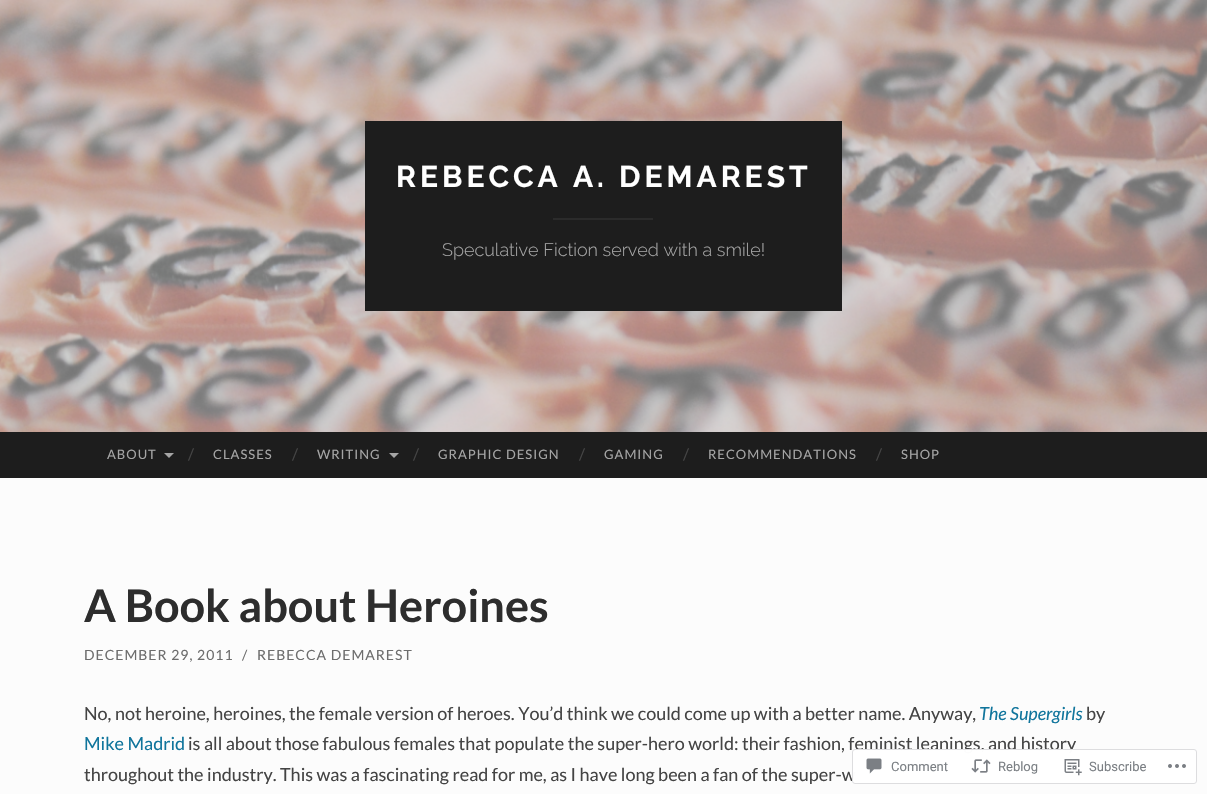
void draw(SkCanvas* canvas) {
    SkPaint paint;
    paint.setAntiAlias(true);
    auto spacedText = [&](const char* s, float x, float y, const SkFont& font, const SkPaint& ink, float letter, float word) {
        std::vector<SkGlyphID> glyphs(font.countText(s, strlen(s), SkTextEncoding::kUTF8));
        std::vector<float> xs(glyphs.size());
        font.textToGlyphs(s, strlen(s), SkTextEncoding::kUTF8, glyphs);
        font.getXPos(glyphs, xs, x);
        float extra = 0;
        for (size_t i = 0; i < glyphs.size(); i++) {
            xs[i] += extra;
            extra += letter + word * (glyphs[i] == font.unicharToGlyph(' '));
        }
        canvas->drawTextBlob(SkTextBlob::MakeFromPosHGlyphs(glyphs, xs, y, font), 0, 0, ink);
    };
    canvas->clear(0xFFFCFCFC);
    canvas->drawImageRect(SkImages::DeferredFromEncodedData(SkData::MakeFromFileName("img1.png")), SkRect::MakeXYWH(0, 0, 1207, 432), SkSamplingOptions());
    paint.setColor(0xFF1D1D1D);
    canvas->drawRect(SkRect::MakeXYWH(365, 121, 477, 190), paint);
    SkFont font1(fontMgr->matchFamilyStyle("Raleway", SkFontStyle::Bold()), 30);
    font1.setSubpixel(true);
    paint.setColor(0xFFFFFFFF);
    spacedText("REBECCA A. DEMAREST", 396, 187, font1, paint, 4, 0);
    paint.setColor(0xFF2B2B2B);
    canvas->drawRect(SkRect::MakeXYWH(553, 218, 100, 2), paint);
    SkFont font2(fontMgr->matchFamilyStyle("Raleway", SkFontStyle(300, SkFontStyle::kNormal_Width, SkFontStyle::kUpright_Slant)), 18);
    font2.setSubpixel(true);
    paint.setColor(0xFFA5A5A5);
    canvas->drawString("Speculative Fiction served with a smile!", 442, 256, font2, paint);
    paint.setColor(0xFF1D1D1D);
    canvas->drawRect(SkRect::MakeXYWH(0, 432, 1207, 46), paint);
    SkFont font3(fontMgr->matchFamilyStyle("Lato", SkFontStyle::Normal()), 13);
    font3.setSubpixel(true);
    paint.setColor(0xFFA5A5A5);
    spacedText("ABOUT", 107, 459, font3, paint, 1, 0);
    canvas->drawPath(SkPathBuilder().moveTo(164, 453).lineTo(174, 453).lineTo(169, 458).close().detach(), paint);
    SkFont font4(fontMgr->matchFamilyStyle("Lato", SkFontStyle::Normal()), 16);
    font4.setSubpixel(true);
    paint.setColor(0xFF444444);
    canvas->drawString("/", 188, 460, font4, paint);
    paint.setColor(0xFFA5A5A5);
    spacedText("CLASSES", 213, 459, font3, paint, 1, 0);
    paint.setColor(0xFF444444);
    canvas->drawString("/", 292, 460, font4, paint);
    paint.setColor(0xFFA5A5A5);
    spacedText("WRITING", 317, 459, font3, paint, 1, 0);
    canvas->drawPath(SkPathBuilder().moveTo(389, 453).lineTo(399, 453).lineTo(394, 458).close().detach(), paint);
    paint.setColor(0xFF444444);
    canvas->drawString("/", 413, 460, font4, paint);
    paint.setColor(0xFFA5A5A5);
    spacedText("GRAPHIC DESIGN", 438, 459, font3, paint, 1, 0);
    paint.setColor(0xFF444444);
    canvas->drawString("/", 579, 460, font4, paint);
    paint.setColor(0xFFA5A5A5);
    spacedText("GAMING", 604, 459, font3, paint, 1, 0);
    paint.setColor(0xFF444444);
    canvas->drawString("/", 683, 460, font4, paint);
    paint.setColor(0xFFA5A5A5);
    spacedText("RECOMMENDATIONS", 708, 459, font3, paint, 1, 0);
    paint.setColor(0xFF444444);
    canvas->drawString("/", 876, 460, font4, paint);
    paint.setColor(0xFFA5A5A5);
    spacedText("SHOP", 901, 459, font3, paint, 1, 0);
    SkFont font5(fontMgr->matchFamilyStyle("Lato", SkFontStyle::Bold()), 45);
    font5.setSubpixel(true);
    paint.setColor(0xFF2D2D2D);
    canvas->drawString("A Book about Heroines", 84, 622, font5, paint);
    SkFont font6(fontMgr->matchFamilyStyle("Lato", SkFontStyle::Normal()), 14);
    font6.setSubpixel(true);
    paint.setColor(0xFF6D6D6D);
    spacedText("DECEMBER 29, 2011", 84, 660, font6, paint, 1, 0);
    spacedText("/", 242, 660, font6, paint, 1, 0);
    spacedText("REBECCA DEMAREST", 257, 660, font6, paint, 1, 0);
    SkFont font7(fontMgr->matchFamilyStyle("Lato", SkFontStyle::Normal()), 18);
    font7.setSubpixel(true);
    paint.setColor(0xFF444444);
    canvas->drawString("No, not heroine, heroines, the female version of heroes. You’d think we could come up with a better name. Anyway,", 84, 720, font7, paint);
    SkFont font8(fontMgr->matchFamilyStyle("Lato", SkFontStyle::Italic()), 18);
    font8.setSubpixel(true);
    paint.setColor(0xFF10759C);
    canvas->drawString("The Supergirls", 979, 720, font8, paint);
    paint.setColor(0xFF444444);
    canvas->drawString("by", 1086, 720, font7, paint);
    paint.setColor(0xFF10759C);
    canvas->drawString("Mike Madrid", 84, 750, font7, paint);
    paint.setColor(0xFF444444);
    canvas->drawString("is all about those fabulous females that populate the super-hero world: their fashion, feminist leanings, and history", 188, 750, font7, paint);
    canvas->drawString("throughout the industry. This was a fascinating read for me, as I have long been a fan of the super-w", 84, 781, font7, paint);
    paint.setColor(0xFAFFFFFF);
    canvas->drawRoundRect(SkRect::MakeXYWH(852, 749, 345, 35), 3, 3, paint);
    paint.setStyle(SkPaint::kStroke_Style);
    paint.setStrokeWidth(1);
    paint.setColor(0xFADCDCDE);
    canvas->drawRoundRect(SkRect::MakeXYWH(852.5f, 749.5f, 344, 34), 2.5f, 2.5f, paint);
    canvas->drawImageRect(SkImages::DeferredFromEncodedData(SkData::MakeFromFileName("img2.png")), SkRect::MakeXYWH(866, 758, 16, 16), SkSamplingOptions());
    SkFont font9(fontMgr->matchFamilyStyle("Roboto", SkFontStyle::Normal()), 13);
    font9.setSubpixel(true);
    paint.setStyle(SkPaint::kFill_Style);
    paint.setColor(0xFF7B7F84);
    canvas->drawString("Comment", 891, 771, font9, paint);
    canvas->drawImageRect(SkImages::DeferredFromEncodedData(SkData::MakeFromFileName("img3.png")), SkRect::MakeXYWH(971, 759, 20, 14), SkSamplingOptions());
    canvas->drawString("Reblog", 998, 771, font9, paint);
    canvas->drawImageRect(SkImages::DeferredFromEncodedData(SkData::MakeFromFileName("img4.png")), SkRect::MakeXYWH(1064, 759, 18, 17), SkSamplingOptions());
    canvas->drawString("Subscribe", 1089, 771, font9, paint);
    canvas->drawImageRect(SkImages::DeferredFromEncodedData(SkData::MakeFromFileName("img5.png")), SkRect::MakeXYWH(1168, 764, 18, 4), SkSamplingOptions());
}
